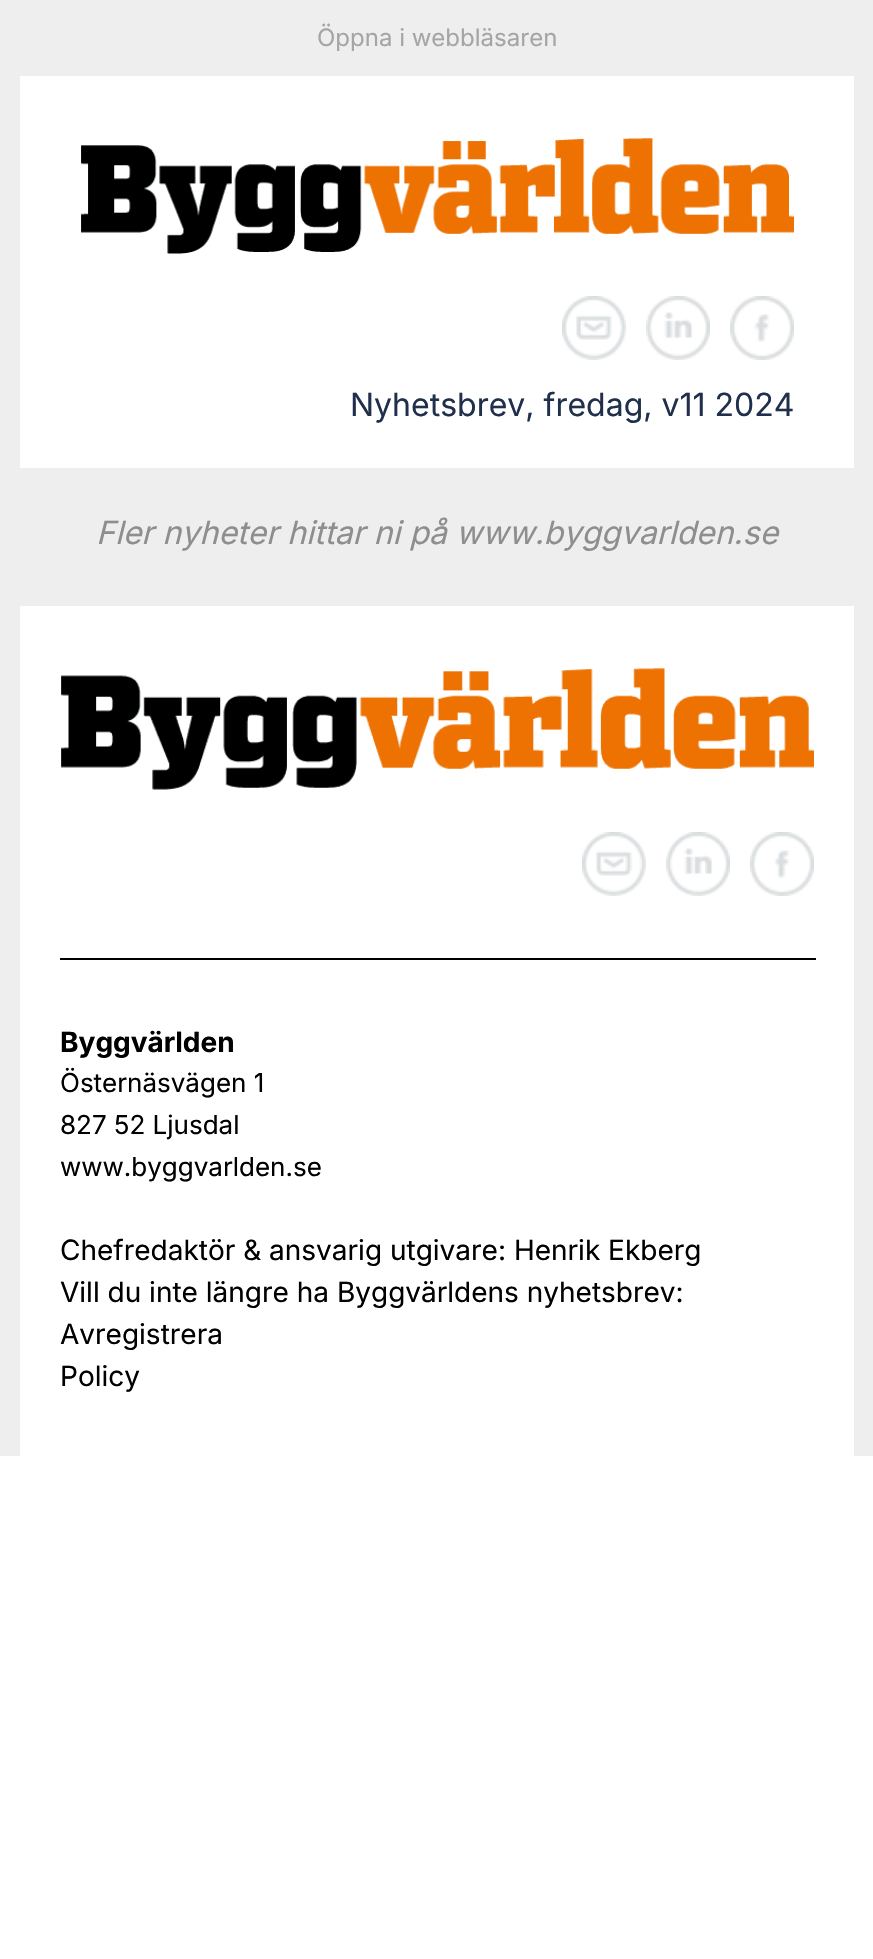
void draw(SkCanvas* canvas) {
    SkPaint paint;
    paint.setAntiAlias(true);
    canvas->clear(0xFFFFFFFF);
    paint.setColor(0xFFEEEEEE);
    canvas->drawRect(SkRect::MakeXYWH(0, 0, 873, 1456), paint);
    SkFont font1(fontMgr->matchFamilyStyle("Inter", SkFontStyle::Normal()), 24);
    font1.setSubpixel(true);
    paint.setColor(0xFFA5A5A5);
    canvas->drawString("Öppna i webbläsaren", 317, 46, font1, paint);
    paint.setColor(0xFFFFFFFF);
    canvas->drawRect(SkRect::MakeXYWH(20, 76, 834, 392), paint);
    canvas->drawImageRect(SkImages::DeferredFromEncodedData(SkData::MakeFromFileName("img1.png")), SkRect::MakeXYWH(81, 138, 713, 116), SkSamplingOptions());
    canvas->drawImageRect(SkImages::DeferredFromEncodedData(SkData::MakeFromFileName("img2.png")), SkRect::MakeXYWH(562, 296, 64, 64), SkSamplingOptions());
    canvas->drawImageRect(SkImages::DeferredFromEncodedData(SkData::MakeFromFileName("img3.png")), SkRect::MakeXYWH(646, 296, 64, 64), SkSamplingOptions());
    canvas->drawImageRect(SkImages::DeferredFromEncodedData(SkData::MakeFromFileName("img4.png")), SkRect::MakeXYWH(730, 296, 64, 64), SkSamplingOptions());
    SkFont font2(fontMgr->matchFamilyStyle("Inter", SkFontStyle::Normal()), 32);
    font2.setSubpixel(true);
    paint.setColor(0xFF20304C);
    canvas->drawString("Nyhetsbrev, fredag, v11 2024", 350, 416, font2, paint);
    SkFont font3(fontMgr->matchFamilyStyle("Inter", SkFontStyle::Italic()), 32);
    font3.setSubpixel(true);
    paint.setColor(0xFF8E8E8E);
    canvas->drawString("Fler nyheter hittar ni på www.byggvarlden.se", 96, 544, font3, paint);
    paint.setColor(0xFFFFFFFF);
    canvas->drawRect(SkRect::MakeXYWH(20, 606, 834, 850), paint);
    canvas->drawImageRect(SkImages::DeferredFromEncodedData(SkData::MakeFromFileName("img5.png")), SkRect::MakeXYWH(61, 668, 753, 122), SkSamplingOptions());
    canvas->drawImageRect(SkImages::DeferredFromEncodedData(SkData::MakeFromFileName("img2.png")), SkRect::MakeXYWH(582, 832, 64, 64), SkSamplingOptions());
    canvas->drawImageRect(SkImages::DeferredFromEncodedData(SkData::MakeFromFileName("img3.png")), SkRect::MakeXYWH(666, 832, 64, 64), SkSamplingOptions());
    canvas->drawImageRect(SkImages::DeferredFromEncodedData(SkData::MakeFromFileName("img4.png")), SkRect::MakeXYWH(750, 832, 64, 64), SkSamplingOptions());
    paint.setColor(0xFF000000);
    canvas->drawRect(SkRect::MakeXYWH(60, 958, 756, 2), paint);
    SkFont font4(fontMgr->matchFamilyStyle("Inter", SkFontStyle::Bold()), 28);
    font4.setSubpixel(true);
    canvas->drawString("Byggvärlden", 60, 1052, font4, paint);
    SkFont font5(fontMgr->matchFamilyStyle("Inter", SkFontStyle::Normal()), 26);
    font5.setSubpixel(true);
    canvas->drawString("Östernäsvägen 1", 60, 1092, font5, paint);
    canvas->drawString("827 52 Ljusdal", 60, 1134, font5, paint);
    canvas->drawString("www.byggvarlden.se", 60, 1176, font5, paint);
    SkFont font6(fontMgr->matchFamilyStyle("Inter", SkFontStyle::Normal()), 28);
    font6.setSubpixel(true);
    canvas->drawString("Chefredaktör & ansvarig utgivare: Henrik Ekberg", 60, 1260, font6, paint);
    canvas->drawString("Vill du inte längre ha Byggvärldens nyhetsbrev:", 60, 1302, font6, paint);
    canvas->drawString("Avregistrera", 60, 1344, font6, paint);
    canvas->drawString("Policy", 60, 1386, font6, paint);
}
